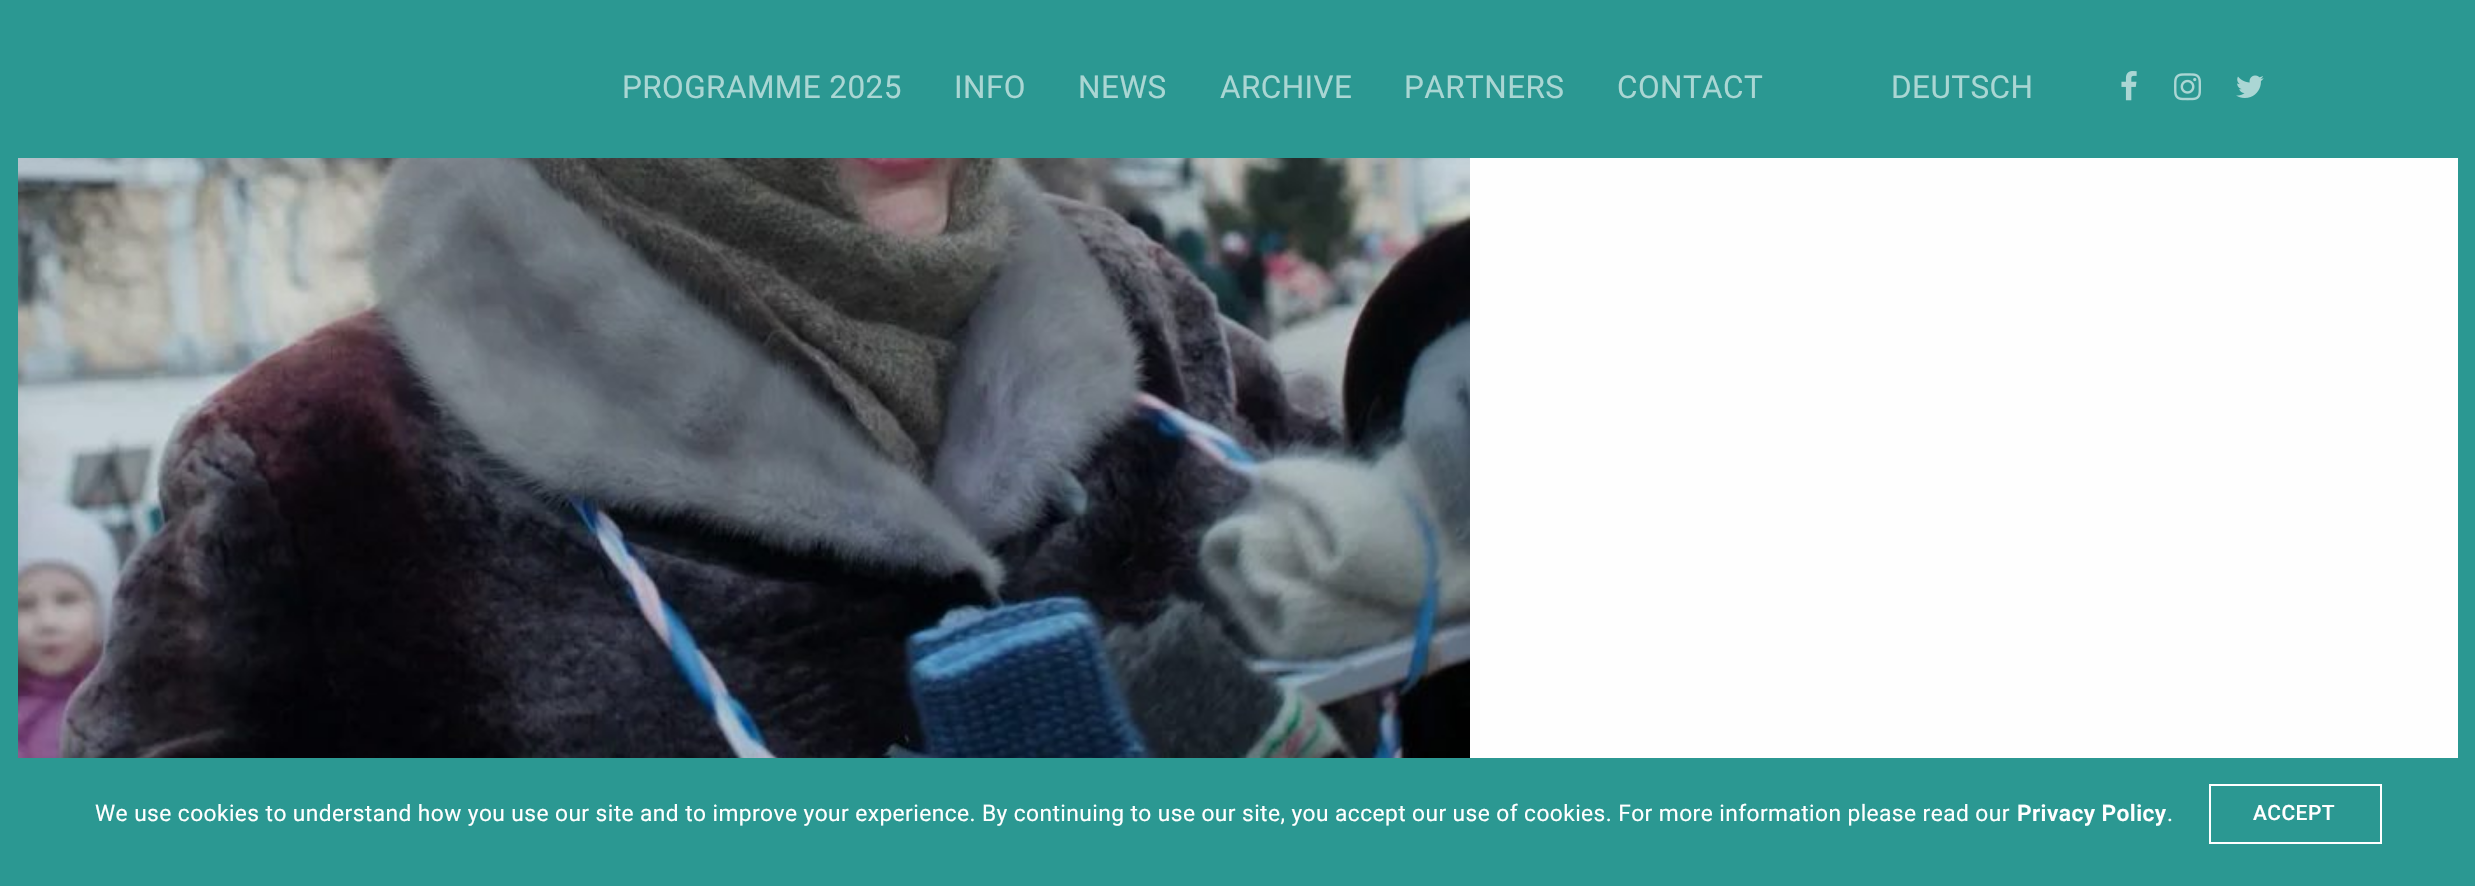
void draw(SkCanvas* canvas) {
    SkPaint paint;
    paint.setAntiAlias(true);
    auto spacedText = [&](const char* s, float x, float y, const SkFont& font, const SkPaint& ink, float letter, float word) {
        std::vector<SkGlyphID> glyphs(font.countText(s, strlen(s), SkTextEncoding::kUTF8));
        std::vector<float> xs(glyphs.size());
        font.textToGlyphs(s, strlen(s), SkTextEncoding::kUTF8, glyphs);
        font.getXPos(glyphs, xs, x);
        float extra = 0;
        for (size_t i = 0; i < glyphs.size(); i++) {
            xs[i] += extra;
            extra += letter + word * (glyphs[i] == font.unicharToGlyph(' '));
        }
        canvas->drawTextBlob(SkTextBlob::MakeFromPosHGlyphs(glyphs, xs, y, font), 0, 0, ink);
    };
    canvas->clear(0xFFFEFEFE);
    paint.setColor(0xFF2B9892);
    canvas->drawRect(SkRect::MakeXYWH(18, 18, 2440, 140), paint);
    canvas->drawImageRect(SkImages::DeferredFromEncodedData(SkData::MakeFromFileName("img1.png")), SkRect::MakeXYWH(2121, 71, 16, 30), SkSamplingOptions());
    canvas->drawImageRect(SkImages::DeferredFromEncodedData(SkData::MakeFromFileName("img2.png")), SkRect::MakeXYWH(2174, 73, 27, 28), SkSamplingOptions());
    canvas->drawImageRect(SkImages::DeferredFromEncodedData(SkData::MakeFromFileName("img3.png")), SkRect::MakeXYWH(2236, 75, 28, 23), SkSamplingOptions());
    canvas->drawImageRect(SkImages::DeferredFromEncodedData(SkData::MakeFromFileName("img4.png")), SkRect::MakeXYWH(18, 158, 1452, 600), SkSamplingOptions());
    canvas->drawRect(SkRect::MakeXYWH(18, 758, 2440, 111), paint);
    paint.setStyle(SkPaint::kStroke_Style);
    paint.setStrokeWidth(2);
    paint.setColor(0xFFFFFFFF);
    canvas->drawRect(SkRect::MakeXYWH(2210, 785, 171, 58), paint);
    paint.setStrokeWidth(18);
    paint.setColor(0xFF2B9892);
    canvas->drawRect(SkRect::MakeXYWH(9, 9, 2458, 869), paint);
    SkFont font1(fontMgr->matchFamilyStyle("Roboto", SkFontStyle::Normal()), 31.5f);
    font1.setSubpixel(true);
    paint.setStyle(SkPaint::kFill_Style);
    paint.setColor(0xFFAAD6D3);
    spacedText("PROGRAMME 2025", 622, 98, font1, paint, 0.42f, 0);
    spacedText("INFO", 954, 98, font1, paint, 0.42f, 0);
    spacedText("NEWS", 1078, 98, font1, paint, 0.42f, 0);
    spacedText("ARCHIVE", 1220, 98, font1, paint, 0.42f, 0);
    spacedText("PARTNERS", 1404, 98, font1, paint, 0.42f, 0);
    spacedText("CONTACT", 1617, 98, font1, paint, 0.42f, 0);
    spacedText("DEUTSCH", 1891, 98, font1, paint, 0.42f, 0);
    SkFont font2(fontMgr->matchFamilyStyle("Roboto", SkFontStyle::Normal()), 22.75f);
    font2.setSubpixel(true);
    paint.setColor(0xFFFFFFFF);
    spacedText("We use cookies to understand how you use our site and to improve your experience. By continuing to use our site, you accept our use of cookies. For more information please read our", 95, 821, font2, paint, 0.42f, 0);
    SkFont font3(fontMgr->matchFamilyStyle("Roboto", SkFontStyle(600, SkFontStyle::kNormal_Width, SkFontStyle::kUpright_Slant)), 22.75f);
    font3.setSubpixel(true);
    spacedText("Privacy Policy", 2017, 821, font3, paint, 0.42f, 0);
    spacedText(".", 2167, 821, font2, paint, 0.42f, 0);
    SkFont font4(fontMgr->matchFamilyStyle("Roboto", SkFontStyle(500, SkFontStyle::kNormal_Width, SkFontStyle::kUpright_Slant)), 21);
    font4.setSubpixel(true);
    spacedText("ACCEPT", 2253, 820, font4, paint, 0.42f, 0);
}
